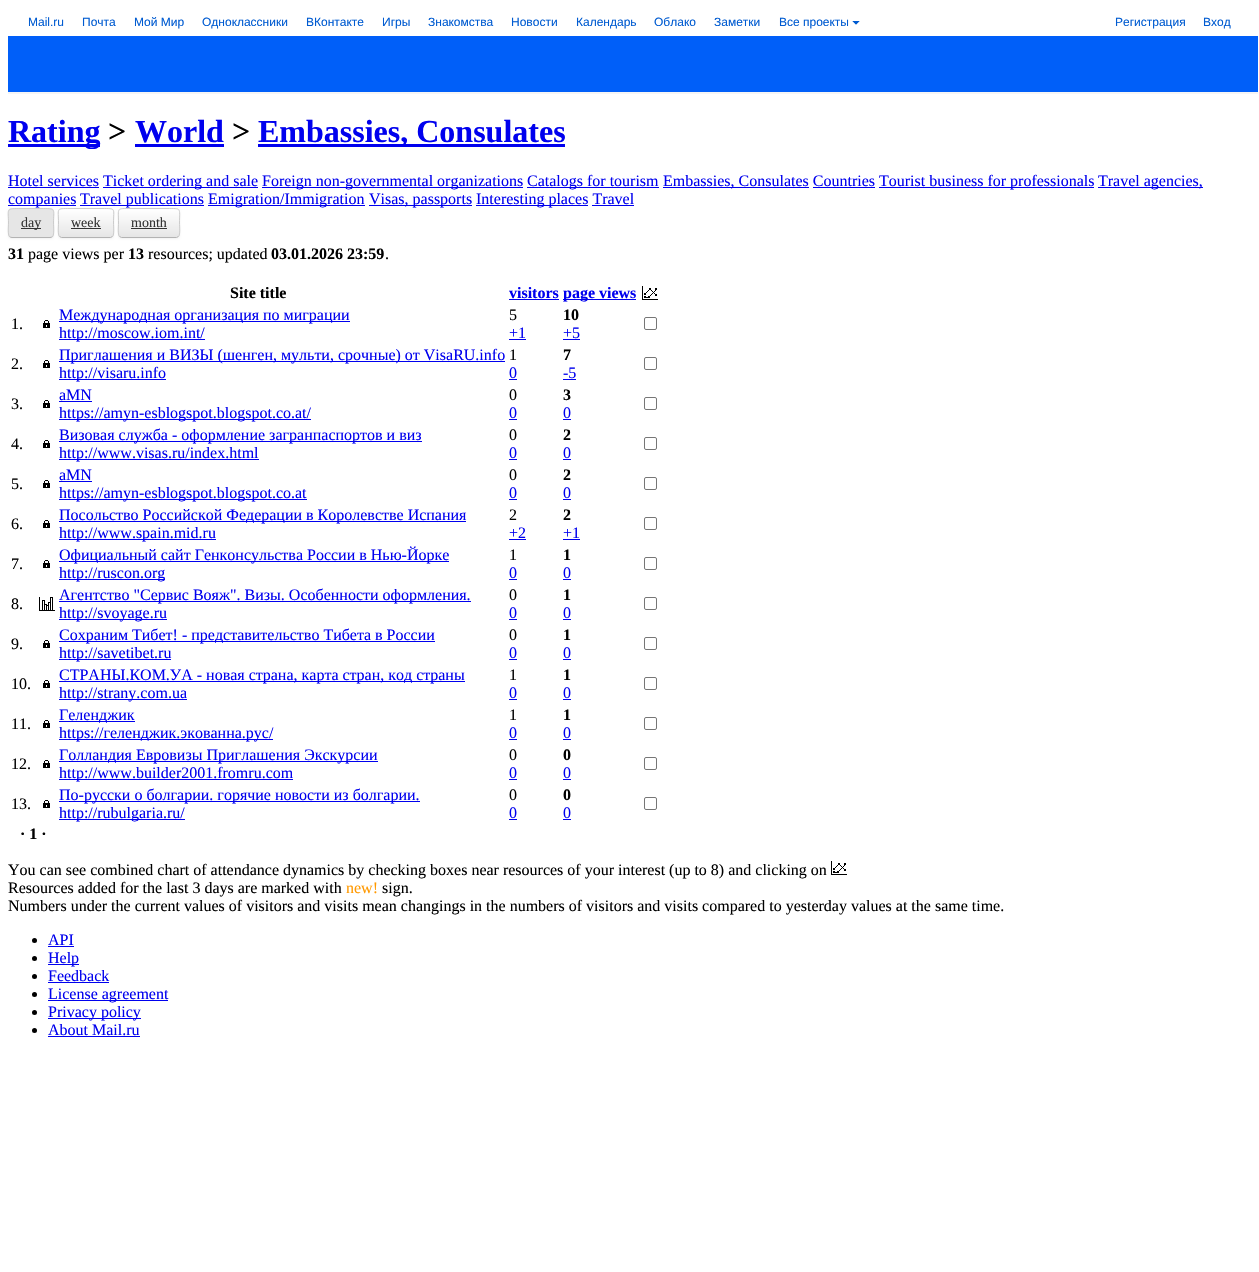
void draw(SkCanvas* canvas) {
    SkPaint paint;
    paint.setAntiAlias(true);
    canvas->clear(0xFFFFFFFF);
    SkFont font1(fontMgr->matchFamilyStyle("Liberation Sans", SkFontStyle::Normal()), 12);
    font1.setSubpixel(true);
    paint.setColor(0xFF005BD1);
    canvas->drawString("Mail.ru", 28, 26, font1, paint);
    canvas->drawString("Почта", 82, 26, font1, paint);
    canvas->drawString("Мой Мир", 134, 26, font1, paint);
    canvas->drawString("Одноклассники", 202, 26, font1, paint);
    canvas->drawString("ВКонтакте", 306, 26, font1, paint);
    canvas->drawString("Игры", 382, 26, font1, paint);
    canvas->drawString("Знакомства", 428, 26, font1, paint);
    canvas->drawString("Новости", 511, 26, font1, paint);
    canvas->drawString("Календарь", 576, 26, font1, paint);
    canvas->drawString("Облако", 654, 26, font1, paint);
    canvas->drawString("Заметки", 714, 26, font1, paint);
    canvas->drawString("Все проекты", 779, 26, font1, paint);
    canvas->drawPath(SkPathBuilder().moveTo(852, 21).lineTo(860, 21).lineTo(856, 25).close().detach(), paint);
    paint.setColor(0xFFFFFFFF);
    canvas->drawPath(SkPathBuilder().moveTo(860, 21).lineTo(860, 29).lineTo(856, 25).close().moveTo(852, 29).lineTo(852, 21).lineTo(856, 25).close().detach(), paint);
    paint.setColor(0xFF005BD1);
    canvas->drawString("Регистрация", 1115, 26, font1, paint);
    canvas->drawString("Вход", 1203, 26, font1, paint);
    paint.setColor(0xFFF5F5F5);
    canvas->drawRect(SkRect::MakeXYWH(8, 92, 1250, 2), paint);
    paint.setColor(0xFF005FF9);
    canvas->drawRect(SkRect::MakeXYWH(8, 36, 1250, 56), paint);
    paint.setColor(0xFF0000EE);
    canvas->drawRect(SkRect::MakeXYWH(8, 144, 92, 3), paint);
    SkFont font2(fontMgr->matchFamilyStyle("Liberation Serif", SkFontStyle::Bold()), 32);
    font2.setSubpixel(true);
    canvas->drawString("Rating", 8, 142, font2, paint);
    paint.setColor(0xFF000000);
    canvas->drawString(">", 108, 142, font2, paint);
    paint.setColor(0xFF0000EE);
    canvas->drawString("World", 135, 142, font2, paint);
    canvas->drawRect(SkRect::MakeXYWH(135, 144, 89, 3), paint);
    paint.setColor(0xFF000000);
    canvas->drawString(">", 232, 142, font2, paint);
    paint.setColor(0xFF0000EE);
    canvas->drawRect(SkRect::MakeXYWH(258, 144, 307, 3), paint);
    canvas->drawString("Embassies, Consulates", 258, 142, font2, paint);
    SkFont font3(fontMgr->matchFamilyStyle("Liberation Serif", SkFontStyle::Normal()), 16);
    font3.setSubpixel(true);
    canvas->drawString("Hotel services", 8, 186, font3, paint);
    canvas->drawRect(SkRect::MakeXYWH(8, 187, 91, 1), paint);
    canvas->drawRect(SkRect::MakeXYWH(103, 187, 155, 1), paint);
    canvas->drawString("Тicket ordering and sale", 103, 186, font3, paint);
    canvas->drawRect(SkRect::MakeXYWH(262, 187, 261, 1), paint);
    canvas->drawString("Foreign non-governmental organizations", 262, 186, font3, paint);
    canvas->drawRect(SkRect::MakeXYWH(527, 187, 132, 1), paint);
    canvas->drawString("Catalogs for tourism", 527, 186, font3, paint);
    canvas->drawRect(SkRect::MakeXYWH(663, 187, 146, 1), paint);
    canvas->drawString("Embassies, Consulates Countries", 663, 186, font3, paint);
    canvas->drawRect(SkRect::MakeXYWH(879, 187, 215, 1), paint);
    canvas->drawString("Tourist business for professionals", 879, 186, font3, paint);
    canvas->drawRect(SkRect::MakeXYWH(1098, 187, 105, 1), paint);
    canvas->drawString("Travel agencies,", 1098, 186, font3, paint);
    canvas->drawRect(SkRect::MakeXYWH(813, 187, 62, 1), paint);
    canvas->drawRect(SkRect::MakeXYWH(8, 205, 68, 1), paint);
    canvas->drawString("companies", 8, 204, font3, paint);
    canvas->drawRect(SkRect::MakeXYWH(80, 205, 124, 1), paint);
    canvas->drawString("Travel publications", 80, 204, font3, paint);
    canvas->drawRect(SkRect::MakeXYWH(208, 205, 157, 1), paint);
    canvas->drawString("Emigration/Immigration", 208, 204, font3, paint);
    canvas->drawRect(SkRect::MakeXYWH(369, 205, 103, 1), paint);
    canvas->drawString("Visas, passports", 369, 204, font3, paint);
    canvas->drawRect(SkRect::MakeXYWH(476, 205, 112, 1), paint);
    canvas->drawString("Interesting places Travel", 476, 204, font3, paint);
    canvas->drawRect(SkRect::MakeXYWH(592, 205, 42, 1), paint);
    paint.setColor(0x0D000000);
    paint.setMaskFilter(SkMaskFilter::MakeBlur(kNormal_SkBlurStyle, 1));
    canvas->drawRoundRect(SkRect::MakeXYWH(8, 209, 46, 30), 4, 4, paint);
    paint.setMaskFilter(nullptr);
    paint.setColor(0xFFE6E6E6);
    canvas->drawRoundRect(SkRect::MakeXYWH(8, 208, 46, 30), 4, 4, paint);
    paint.setStyle(SkPaint::kStroke_Style);
    paint.setStrokeWidth(1);
    paint.setColor(0xFFB3B3B3);
    canvas->drawPath(SkPathBuilder().moveTo(52.5f, 236.5f).cubicTo(52, 237, 51, 237.5f, 50, 237.5f).lineTo(12, 237.5f).cubicTo(11, 237.5f, 10, 237, 9.5f, 236.5f).detach(), paint);
    paint.setColor(0xFFCCCCCC);
    canvas->drawPath(SkPathBuilder().moveTo(9.5f, 236.5f).cubicTo(7.5f, 234.5f, 8.5f, 226, 8.5f, 223).cubicTo(8.5f, 209.5f, 5.5f, 208.5f, 18.5f, 208.5f).lineTo(43.5f, 208.5f).cubicTo(56.5f, 208.5f, 53.5f, 209.5f, 53.5f, 223).cubicTo(53.5f, 226, 54.5f, 234.5f, 52.5f, 236.5f).detach(), paint);
    paint.setStyle(SkPaint::kFill_Style);
    paint.setColor(0xFF333333);
    canvas->drawRect(SkRect::MakeXYWH(21, 228, 20, 1), paint);
    SkFont font4(fontMgr->matchFamilyStyle("Liberation Serif", SkFontStyle::Normal()), 14);
    font4.setSubpixel(true);
    canvas->drawString("day", 21, 227, font4, paint);
    paint.setColor(0x0D000000);
    paint.setMaskFilter(SkMaskFilter::MakeBlur(kNormal_SkBlurStyle, 1));
    canvas->drawRoundRect(SkRect::MakeXYWH(58, 209, 56, 30), 4, 4, paint);
    paint.setMaskFilter(nullptr);
    paint.setColor(0xFFF5F5F5);
    canvas->drawRoundRect(SkRect::MakeXYWH(58, 208, 56, 30), 4, 4, paint);
    canvas->save();
    canvas->clipPath(SkPathBuilder().moveTo(62, 208).lineTo(110, 208).cubicTo(112, 208, 114, 210, 114, 212).lineTo(114, 234).cubicTo(114, 236, 112, 238, 110, 238).lineTo(62, 238).cubicTo(60, 238, 58, 236, 58, 234).lineTo(58, 212).cubicTo(58, 210, 60, 208, 62, 208).close().detach(), true);
    {
        const SkColor colors[] = {0xFFFFFFFF, 0xFFE6E6E6};
        const float stops[] = {0, 1};
        const SkPoint ends[] = {{86, 209}, {86, 237}};
        paint.setShader(SkGradientShader::MakeLinear(ends, colors, stops, 2, SkTileMode::kClamp));
        paint.setAlpha(255);
    }
    canvas->drawRect(SkRect::MakeXYWH(58, 209, 56, 28), paint);
    canvas->restore();
    paint.setShader(nullptr);
    paint.setColor(0xFFFFFFFF);
    canvas->drawPath(SkPathBuilder().moveTo(62, 210).lineTo(110, 210).cubicTo(112, 210, 113, 211, 113, 213).cubicTo(113, 207, 106, 209, 102, 209).lineTo(70, 209).cubicTo(66, 209, 59, 207, 59, 213).cubicTo(59, 211, 60, 210, 62, 210).close().detach(), paint);
    paint.setStyle(SkPaint::kStroke_Style);
    paint.setColor(0xFFB3B3B3);
    canvas->drawPath(SkPathBuilder().moveTo(112.5f, 236.5f).lineTo(110.5f, 237.5f).lineTo(61.5f, 237.5f).lineTo(59.5f, 236.5f).detach(), paint);
    paint.setColor(0xFFCCCCCC);
    canvas->drawPath(SkPathBuilder().moveTo(59.5f, 236.5f).cubicTo(57.5f, 234.5f, 58.5f, 226, 58.5f, 223).cubicTo(58.5f, 208, 55.5f, 208.5f, 70, 208.5f).lineTo(102, 208.5f).cubicTo(116.5f, 208.5f, 113.5f, 208, 113.5f, 223).cubicTo(113.5f, 226, 114.5f, 234.5f, 112.5f, 236.5f).detach(), paint);
    paint.setStyle(SkPaint::kFill_Style);
    paint.setColor(0xFF333333);
    canvas->drawString("week", 71, 227, font4, paint);
    canvas->drawRect(SkRect::MakeXYWH(71, 228, 30, 1), paint);
    paint.setColor(0x0D000000);
    paint.setMaskFilter(SkMaskFilter::MakeBlur(kNormal_SkBlurStyle, 1));
    canvas->drawRoundRect(SkRect::MakeXYWH(118, 209, 62, 30), 4, 4, paint);
    paint.setMaskFilter(nullptr);
    paint.setColor(0xFFF5F5F5);
    canvas->drawRoundRect(SkRect::MakeXYWH(118, 208, 62, 30), 4, 4, paint);
    canvas->save();
    canvas->clipPath(SkPathBuilder().moveTo(122, 208).lineTo(176, 208).cubicTo(178, 208, 180, 210, 180, 212).lineTo(180, 234).cubicTo(180, 236, 178, 238, 176, 238).lineTo(122, 238).cubicTo(120, 238, 118, 236, 118, 234).lineTo(118, 212).cubicTo(118, 210, 120, 208, 122, 208).close().detach(), true);
    {
        const SkColor colors[] = {0xFFFFFFFF, 0xFFE6E6E6};
        const float stops[] = {0, 1};
        const SkPoint ends[] = {{149, 209}, {149, 237}};
        paint.setShader(SkGradientShader::MakeLinear(ends, colors, stops, 2, SkTileMode::kClamp));
        paint.setAlpha(255);
    }
    canvas->drawRect(SkRect::MakeXYWH(118, 209, 62, 28), paint);
    canvas->restore();
    paint.setShader(nullptr);
    paint.setColor(0xFFFFFFFF);
    canvas->drawPath(SkPathBuilder().moveTo(122, 210).lineTo(176, 210).cubicTo(178, 210, 179, 211, 179, 213).cubicTo(179, 207, 171, 209, 167, 209).lineTo(131, 209).cubicTo(127, 209, 119, 207, 119, 213).cubicTo(119, 211, 120, 210, 122, 210).close().detach(), paint);
    paint.setStyle(SkPaint::kStroke_Style);
    paint.setColor(0xFFB3B3B3);
    canvas->drawPath(SkPathBuilder().moveTo(178.5f, 236.5f).lineTo(176.5f, 237.5f).lineTo(121.5f, 237.5f).lineTo(119.5f, 236.5f).detach(), paint);
    paint.setColor(0xFFCCCCCC);
    canvas->drawPath(SkPathBuilder().moveTo(119.5f, 236.5f).cubicTo(117.5f, 234.5f, 118.5f, 226, 118.5f, 223).cubicTo(118.5f, 207.5f, 116, 208.5f, 131, 208.5f).lineTo(167, 208.5f).cubicTo(182, 208.5f, 179.5f, 207.5f, 179.5f, 223).cubicTo(179.5f, 226, 180.5f, 234.5f, 178.5f, 236.5f).detach(), paint);
    paint.setStyle(SkPaint::kFill_Style);
    paint.setColor(0xFF333333);
    canvas->drawString("month", 131, 227, font4, paint);
    canvas->drawRect(SkRect::MakeXYWH(131, 228, 36, 1), paint);
    SkFont font5(fontMgr->matchFamilyStyle("Liberation Serif", SkFontStyle::Bold()), 16);
    font5.setSubpixel(true);
    paint.setColor(0xFF000000);
    canvas->drawString("31", 8, 259, font5, paint);
    canvas->drawString("page views per", 28, 259, font3, paint);
    canvas->drawString("13", 128, 259, font5, paint);
    canvas->drawString("resources; updated", 148, 259, font3, paint);
    canvas->drawString("03.01.2026 23:59", 271, 259, font5, paint);
    canvas->drawString(".", 385, 259, font3, paint);
    canvas->drawString("Site title", 230, 298, font5, paint);
    paint.setColor(0xFF0000EE);
    canvas->drawString("visitors", 509, 298, font5, paint);
    canvas->drawRect(SkRect::MakeXYWH(509, 299, 50, 1), paint);
    canvas->drawRect(SkRect::MakeXYWH(563, 299, 73, 1), paint);
    canvas->drawString("page views", 563, 298, font5, paint);
    canvas->drawImageRect(SkImages::DeferredFromEncodedData(SkData::MakeFromFileName("img1.png")), SkRect::MakeXYWH(642, 286, 16, 14), SkSamplingOptions());
    paint.setColor(0xFF000000);
    canvas->drawString("1.", 11, 329, font3, paint);
    canvas->drawImageRect(SkImages::DeferredFromEncodedData(SkData::MakeFromFileName("img2.png")), SkRect::MakeXYWH(43, 320, 7, 8), SkSamplingOptions());
    paint.setColor(0xFF0000EE);
    canvas->drawRect(SkRect::MakeXYWH(59, 321, 291, 1), paint);
    canvas->drawString("Международная организация по миграции", 59, 320, font3, paint);
    canvas->drawRect(SkRect::MakeXYWH(59, 339, 146, 1), paint);
    canvas->drawString("http://moscow.iom.int/", 59, 338, font3, paint);
    paint.setColor(0xFF000000);
    canvas->drawString("5", 509, 320, font3, paint);
    paint.setColor(0xFF0000EE);
    canvas->drawString("+1", 509, 338, font3, paint);
    canvas->drawRect(SkRect::MakeXYWH(509, 339, 17, 1), paint);
    paint.setColor(0xFF000000);
    canvas->drawString("10", 563, 320, font5, paint);
    paint.setColor(0xFF0000EE);
    canvas->drawString("+5", 563, 338, font3, paint);
    canvas->drawRect(SkRect::MakeXYWH(563, 339, 17, 1), paint);
    paint.setStyle(SkPaint::kStroke_Style);
    paint.setColor(0xFF767676);
    canvas->drawRoundRect(SkRect::MakeXYWH(644.5f, 317.5f, 12, 12), 1.5f, 1.5f, paint);
    paint.setStyle(SkPaint::kFill_Style);
    paint.setColor(0xFF000000);
    canvas->drawString("2.", 11, 369, font3, paint);
    canvas->drawImageRect(SkImages::DeferredFromEncodedData(SkData::MakeFromFileName("img2.png")), SkRect::MakeXYWH(43, 360, 7, 8), SkSamplingOptions());
    paint.setColor(0xFF0000EE);
    canvas->drawRect(SkRect::MakeXYWH(59, 361, 446, 1), paint);
    canvas->drawString("Приглашения и ВИЗЫ (шенген, мульти, срочные) от VisaRU.info", 59, 360, font3, paint);
    canvas->drawRect(SkRect::MakeXYWH(59, 379, 107, 1), paint);
    canvas->drawString("http://visaru.info", 59, 378, font3, paint);
    paint.setColor(0xFF000000);
    canvas->drawString("1", 509, 360, font3, paint);
    paint.setColor(0xFF0000EE);
    canvas->drawString("0", 509, 378, font3, paint);
    canvas->drawRect(SkRect::MakeXYWH(509, 379, 8, 1), paint);
    paint.setColor(0xFF000000);
    canvas->drawString("7", 563, 360, font5, paint);
    paint.setColor(0xFF0000EE);
    canvas->drawString("-5", 563, 378, font3, paint);
    canvas->drawRect(SkRect::MakeXYWH(563, 379, 13, 1), paint);
    paint.setStyle(SkPaint::kStroke_Style);
    paint.setColor(0xFF767676);
    canvas->drawRoundRect(SkRect::MakeXYWH(644.5f, 357.5f, 12, 12), 1.5f, 1.5f, paint);
    paint.setStyle(SkPaint::kFill_Style);
    paint.setColor(0xFF000000);
    canvas->drawString("3.", 11, 409, font3, paint);
    canvas->drawImageRect(SkImages::DeferredFromEncodedData(SkData::MakeFromFileName("img2.png")), SkRect::MakeXYWH(43, 400, 7, 8), SkSamplingOptions());
    paint.setColor(0xFF0000EE);
    canvas->drawString("aMN", 59, 400, font3, paint);
    canvas->drawRect(SkRect::MakeXYWH(59, 401, 33, 1), paint);
    canvas->drawRect(SkRect::MakeXYWH(59, 419, 252, 1), paint);
    canvas->drawString("https://amyn-esblogspot.blogspot.co.at/", 59, 418, font3, paint);
    paint.setColor(0xFF000000);
    canvas->drawString("0", 509, 400, font3, paint);
    paint.setColor(0xFF0000EE);
    canvas->drawString("0", 509, 418, font3, paint);
    canvas->drawRect(SkRect::MakeXYWH(509, 419, 8, 1), paint);
    paint.setColor(0xFF000000);
    canvas->drawString("3", 563, 400, font5, paint);
    paint.setColor(0xFF0000EE);
    canvas->drawString("0", 563, 418, font3, paint);
    canvas->drawRect(SkRect::MakeXYWH(563, 419, 8, 1), paint);
    paint.setStyle(SkPaint::kStroke_Style);
    paint.setColor(0xFF767676);
    canvas->drawRoundRect(SkRect::MakeXYWH(644.5f, 397.5f, 12, 12), 1.5f, 1.5f, paint);
    paint.setStyle(SkPaint::kFill_Style);
    paint.setColor(0xFF000000);
    canvas->drawString("4.", 11, 449, font3, paint);
    canvas->drawImageRect(SkImages::DeferredFromEncodedData(SkData::MakeFromFileName("img2.png")), SkRect::MakeXYWH(43, 440, 7, 8), SkSamplingOptions());
    paint.setColor(0xFF0000EE);
    canvas->drawRect(SkRect::MakeXYWH(59, 441, 363, 1), paint);
    canvas->drawString("Визовая служба - оформление загранпаспортов и виз", 59, 440, font3, paint);
    canvas->drawRect(SkRect::MakeXYWH(59, 459, 200, 1), paint);
    canvas->drawString("http://www.visas.ru/index.html", 59, 458, font3, paint);
    paint.setColor(0xFF000000);
    canvas->drawString("0", 509, 440, font3, paint);
    paint.setColor(0xFF0000EE);
    canvas->drawString("0", 509, 458, font3, paint);
    canvas->drawRect(SkRect::MakeXYWH(509, 459, 8, 1), paint);
    paint.setColor(0xFF000000);
    canvas->drawString("2", 563, 440, font5, paint);
    paint.setColor(0xFF0000EE);
    canvas->drawString("0", 563, 458, font3, paint);
    canvas->drawRect(SkRect::MakeXYWH(563, 459, 8, 1), paint);
    paint.setStyle(SkPaint::kStroke_Style);
    paint.setColor(0xFF767676);
    canvas->drawRoundRect(SkRect::MakeXYWH(644.5f, 437.5f, 12, 12), 1.5f, 1.5f, paint);
    paint.setStyle(SkPaint::kFill_Style);
    paint.setColor(0xFF000000);
    canvas->drawString("5.", 11, 489, font3, paint);
    canvas->drawImageRect(SkImages::DeferredFromEncodedData(SkData::MakeFromFileName("img2.png")), SkRect::MakeXYWH(43, 480, 7, 8), SkSamplingOptions());
    paint.setColor(0xFF0000EE);
    canvas->drawString("aMN", 59, 480, font3, paint);
    canvas->drawRect(SkRect::MakeXYWH(59, 481, 33, 1), paint);
    canvas->drawRect(SkRect::MakeXYWH(59, 499, 248, 1), paint);
    canvas->drawString("https://amyn-esblogspot.blogspot.co.at", 59, 498, font3, paint);
    paint.setColor(0xFF000000);
    canvas->drawString("0", 509, 480, font3, paint);
    paint.setColor(0xFF0000EE);
    canvas->drawString("0", 509, 498, font3, paint);
    canvas->drawRect(SkRect::MakeXYWH(509, 499, 8, 1), paint);
    paint.setColor(0xFF000000);
    canvas->drawString("2", 563, 480, font5, paint);
    paint.setColor(0xFF0000EE);
    canvas->drawString("0", 563, 498, font3, paint);
    canvas->drawRect(SkRect::MakeXYWH(563, 499, 8, 1), paint);
    paint.setStyle(SkPaint::kStroke_Style);
    paint.setColor(0xFF767676);
    canvas->drawRoundRect(SkRect::MakeXYWH(644.5f, 477.5f, 12, 12), 1.5f, 1.5f, paint);
    paint.setStyle(SkPaint::kFill_Style);
    paint.setColor(0xFF000000);
    canvas->drawString("6.", 11, 529, font3, paint);
    canvas->drawImageRect(SkImages::DeferredFromEncodedData(SkData::MakeFromFileName("img2.png")), SkRect::MakeXYWH(43, 520, 7, 8), SkSamplingOptions());
    paint.setColor(0xFF0000EE);
    canvas->drawRect(SkRect::MakeXYWH(59, 521, 407, 1), paint);
    canvas->drawString("Посольство Российской Федерации в Королевстве Испания", 59, 520, font3, paint);
    canvas->drawRect(SkRect::MakeXYWH(59, 539, 157, 1), paint);
    canvas->drawString("http://www.spain.mid.ru", 59, 538, font3, paint);
    paint.setColor(0xFF000000);
    canvas->drawString("2", 509, 520, font3, paint);
    paint.setColor(0xFF0000EE);
    canvas->drawString("+2", 509, 538, font3, paint);
    canvas->drawRect(SkRect::MakeXYWH(509, 539, 17, 1), paint);
    paint.setColor(0xFF000000);
    canvas->drawString("2", 563, 520, font5, paint);
    paint.setColor(0xFF0000EE);
    canvas->drawString("+1", 563, 538, font3, paint);
    canvas->drawRect(SkRect::MakeXYWH(563, 539, 17, 1), paint);
    paint.setStyle(SkPaint::kStroke_Style);
    paint.setColor(0xFF767676);
    canvas->drawRoundRect(SkRect::MakeXYWH(644.5f, 517.5f, 12, 12), 1.5f, 1.5f, paint);
    paint.setStyle(SkPaint::kFill_Style);
    paint.setColor(0xFF000000);
    canvas->drawString("7.", 11, 569, font3, paint);
    canvas->drawImageRect(SkImages::DeferredFromEncodedData(SkData::MakeFromFileName("img2.png")), SkRect::MakeXYWH(43, 560, 7, 8), SkSamplingOptions());
    paint.setColor(0xFF0000EE);
    canvas->drawRect(SkRect::MakeXYWH(59, 561, 390, 1), paint);
    canvas->drawString("Официальный сайт Генконсульства России в Нью-Йорке", 59, 560, font3, paint);
    canvas->drawRect(SkRect::MakeXYWH(59, 579, 106, 1), paint);
    canvas->drawString("http://ruscon.org", 59, 578, font3, paint);
    paint.setColor(0xFF000000);
    canvas->drawString("1", 509, 560, font3, paint);
    paint.setColor(0xFF0000EE);
    canvas->drawString("0", 509, 578, font3, paint);
    canvas->drawRect(SkRect::MakeXYWH(509, 579, 8, 1), paint);
    paint.setColor(0xFF000000);
    canvas->drawString("1", 563, 560, font5, paint);
    paint.setColor(0xFF0000EE);
    canvas->drawString("0", 563, 578, font3, paint);
    canvas->drawRect(SkRect::MakeXYWH(563, 579, 8, 1), paint);
    paint.setStyle(SkPaint::kStroke_Style);
    paint.setColor(0xFF767676);
    canvas->drawRoundRect(SkRect::MakeXYWH(644.5f, 557.5f, 12, 12), 1.5f, 1.5f, paint);
    paint.setStyle(SkPaint::kFill_Style);
    paint.setColor(0xFF000000);
    canvas->drawString("8.", 11, 609, font3, paint);
    canvas->drawImageRect(SkImages::DeferredFromEncodedData(SkData::MakeFromFileName("img3.png")), SkRect::MakeXYWH(39, 597, 16, 14), SkSamplingOptions());
    paint.setColor(0xFF0000EE);
    canvas->drawRect(SkRect::MakeXYWH(59, 601, 412, 1), paint);
    canvas->drawString("Агентство \"Сервис Вояж\". Визы. Особенности оформления.", 59, 600, font3, paint);
    canvas->drawRect(SkRect::MakeXYWH(59, 619, 108, 1), paint);
    canvas->drawString("http://svoyage.ru", 59, 618, font3, paint);
    paint.setColor(0xFF000000);
    canvas->drawString("0", 509, 600, font3, paint);
    paint.setColor(0xFF0000EE);
    canvas->drawString("0", 509, 618, font3, paint);
    canvas->drawRect(SkRect::MakeXYWH(509, 619, 8, 1), paint);
    paint.setColor(0xFF000000);
    canvas->drawString("1", 563, 600, font5, paint);
    paint.setColor(0xFF0000EE);
    canvas->drawString("0", 563, 618, font3, paint);
    canvas->drawRect(SkRect::MakeXYWH(563, 619, 8, 1), paint);
    paint.setStyle(SkPaint::kStroke_Style);
    paint.setColor(0xFF767676);
    canvas->drawRoundRect(SkRect::MakeXYWH(644.5f, 597.5f, 12, 12), 1.5f, 1.5f, paint);
    paint.setStyle(SkPaint::kFill_Style);
    paint.setColor(0xFF000000);
    canvas->drawString("9.", 11, 649, font3, paint);
    canvas->drawImageRect(SkImages::DeferredFromEncodedData(SkData::MakeFromFileName("img2.png")), SkRect::MakeXYWH(43, 640, 7, 8), SkSamplingOptions());
    paint.setColor(0xFF0000EE);
    canvas->drawRect(SkRect::MakeXYWH(59, 641, 376, 1), paint);
    canvas->drawString("Сохраним Тибет! - представительство Тибета в России", 59, 640, font3, paint);
    canvas->drawRect(SkRect::MakeXYWH(59, 659, 112, 1), paint);
    canvas->drawString("http://savetibet.ru", 59, 658, font3, paint);
    paint.setColor(0xFF000000);
    canvas->drawString("0", 509, 640, font3, paint);
    paint.setColor(0xFF0000EE);
    canvas->drawString("0", 509, 658, font3, paint);
    canvas->drawRect(SkRect::MakeXYWH(509, 659, 8, 1), paint);
    paint.setColor(0xFF000000);
    canvas->drawString("1", 563, 640, font5, paint);
    paint.setColor(0xFF0000EE);
    canvas->drawString("0", 563, 658, font3, paint);
    canvas->drawRect(SkRect::MakeXYWH(563, 659, 8, 1), paint);
    paint.setStyle(SkPaint::kStroke_Style);
    paint.setColor(0xFF767676);
    canvas->drawRoundRect(SkRect::MakeXYWH(644.5f, 637.5f, 12, 12), 1.5f, 1.5f, paint);
    paint.setStyle(SkPaint::kFill_Style);
    paint.setColor(0xFF000000);
    canvas->drawString("10.", 11, 689, font3, paint);
    canvas->drawImageRect(SkImages::DeferredFromEncodedData(SkData::MakeFromFileName("img2.png")), SkRect::MakeXYWH(43, 680, 7, 8), SkSamplingOptions());
    paint.setColor(0xFF0000EE);
    canvas->drawRect(SkRect::MakeXYWH(59, 681, 406, 1), paint);
    canvas->drawString("СТРАНЫ.КОМ.УА - новая страна, карта стран, код страны", 59, 680, font3, paint);
    canvas->drawRect(SkRect::MakeXYWH(59, 699, 128, 1), paint);
    canvas->drawString("http://strany.com.ua", 59, 698, font3, paint);
    paint.setColor(0xFF000000);
    canvas->drawString("1", 509, 680, font3, paint);
    paint.setColor(0xFF0000EE);
    canvas->drawString("0", 509, 698, font3, paint);
    canvas->drawRect(SkRect::MakeXYWH(509, 699, 8, 1), paint);
    paint.setColor(0xFF000000);
    canvas->drawString("1", 563, 680, font5, paint);
    paint.setColor(0xFF0000EE);
    canvas->drawString("0", 563, 698, font3, paint);
    canvas->drawRect(SkRect::MakeXYWH(563, 699, 8, 1), paint);
    paint.setStyle(SkPaint::kStroke_Style);
    paint.setColor(0xFF767676);
    canvas->drawRoundRect(SkRect::MakeXYWH(644.5f, 677.5f, 12, 12), 1.5f, 1.5f, paint);
    paint.setStyle(SkPaint::kFill_Style);
    paint.setColor(0xFF000000);
    canvas->drawString("11.", 11, 729, font3, paint);
    canvas->drawImageRect(SkImages::DeferredFromEncodedData(SkData::MakeFromFileName("img2.png")), SkRect::MakeXYWH(43, 720, 7, 8), SkSamplingOptions());
    paint.setColor(0xFF0000EE);
    canvas->drawRect(SkRect::MakeXYWH(59, 721, 76, 1), paint);
    canvas->drawString("Геленджик", 59, 720, font3, paint);
    canvas->drawRect(SkRect::MakeXYWH(59, 739, 214, 1), paint);
    canvas->drawString("https://геленджик.экованна.рус/", 59, 738, font3, paint);
    paint.setColor(0xFF000000);
    canvas->drawString("1", 509, 720, font3, paint);
    paint.setColor(0xFF0000EE);
    canvas->drawString("0", 509, 738, font3, paint);
    canvas->drawRect(SkRect::MakeXYWH(509, 739, 8, 1), paint);
    paint.setColor(0xFF000000);
    canvas->drawString("1", 563, 720, font5, paint);
    paint.setColor(0xFF0000EE);
    canvas->drawString("0", 563, 738, font3, paint);
    canvas->drawRect(SkRect::MakeXYWH(563, 739, 8, 1), paint);
    paint.setStyle(SkPaint::kStroke_Style);
    paint.setColor(0xFF767676);
    canvas->drawRoundRect(SkRect::MakeXYWH(644.5f, 717.5f, 12, 12), 1.5f, 1.5f, paint);
    paint.setStyle(SkPaint::kFill_Style);
    paint.setColor(0xFF000000);
    canvas->drawString("12.", 11, 769, font3, paint);
    canvas->drawImageRect(SkImages::DeferredFromEncodedData(SkData::MakeFromFileName("img2.png")), SkRect::MakeXYWH(43, 760, 7, 8), SkSamplingOptions());
    paint.setColor(0xFF0000EE);
    canvas->drawRect(SkRect::MakeXYWH(59, 761, 319, 1), paint);
    canvas->drawString("Голландия Евровизы Приглашения Экскурсии", 59, 760, font3, paint);
    canvas->drawRect(SkRect::MakeXYWH(59, 779, 234, 1), paint);
    canvas->drawString("http://www.builder2001.fromru.com", 59, 778, font3, paint);
    paint.setColor(0xFF000000);
    canvas->drawString("0", 509, 760, font3, paint);
    paint.setColor(0xFF0000EE);
    canvas->drawString("0", 509, 778, font3, paint);
    canvas->drawRect(SkRect::MakeXYWH(509, 779, 8, 1), paint);
    paint.setColor(0xFF000000);
    canvas->drawString("0", 563, 760, font5, paint);
    paint.setColor(0xFF0000EE);
    canvas->drawString("0", 563, 778, font3, paint);
    canvas->drawRect(SkRect::MakeXYWH(563, 779, 8, 1), paint);
    paint.setStyle(SkPaint::kStroke_Style);
    paint.setColor(0xFF767676);
    canvas->drawRoundRect(SkRect::MakeXYWH(644.5f, 757.5f, 12, 12), 1.5f, 1.5f, paint);
    paint.setStyle(SkPaint::kFill_Style);
    paint.setColor(0xFF000000);
    canvas->drawString("13.", 11, 809, font3, paint);
    canvas->drawImageRect(SkImages::DeferredFromEncodedData(SkData::MakeFromFileName("img2.png")), SkRect::MakeXYWH(43, 800, 7, 8), SkSamplingOptions());
    paint.setColor(0xFF0000EE);
    canvas->drawRect(SkRect::MakeXYWH(59, 801, 361, 1), paint);
    canvas->drawString("По-русски о болгарии. горячие новости из болгарии.", 59, 800, font3, paint);
    canvas->drawRect(SkRect::MakeXYWH(59, 819, 126, 1), paint);
    canvas->drawString("http://rubulgaria.ru/", 59, 818, font3, paint);
    paint.setColor(0xFF000000);
    canvas->drawString("0", 509, 800, font3, paint);
    paint.setColor(0xFF0000EE);
    canvas->drawString("0", 509, 818, font3, paint);
    canvas->drawRect(SkRect::MakeXYWH(509, 819, 8, 1), paint);
    paint.setColor(0xFF000000);
    canvas->drawString("0", 563, 800, font5, paint);
    paint.setColor(0xFF0000EE);
    canvas->drawString("0", 563, 818, font3, paint);
    canvas->drawRect(SkRect::MakeXYWH(563, 819, 8, 1), paint);
    paint.setStyle(SkPaint::kStroke_Style);
    paint.setColor(0xFF767676);
    canvas->drawRoundRect(SkRect::MakeXYWH(644.5f, 797.5f, 12, 12), 1.5f, 1.5f, paint);
    paint.setStyle(SkPaint::kFill_Style);
    paint.setColor(0xFF000000);
    canvas->drawString("· 1 ·", 20, 839, font5, paint);
    canvas->drawString("You can see combined chart of attendance dynamics by checking boxes near resources of your interest (up to 8) and clicking on", 8, 875, font3, paint);
    canvas->drawImageRect(SkImages::DeferredFromEncodedData(SkData::MakeFromFileName("img1.png")), SkRect::MakeXYWH(831, 861, 16, 14), SkSamplingOptions());
    canvas->drawString("Resources added for the last 3 days are marked with", 8, 893, font3, paint);
    paint.setColor(0xFFFF9900);
    canvas->drawString("new!", 346, 893, font3, paint);
    paint.setColor(0xFF000000);
    canvas->drawString("sign.", 382, 893, font3, paint);
    canvas->drawString("Numbers under the current values of visitors and visits mean changings in the numbers of visitors and visits compared to yesterday values at the same time.", 8, 911, font3, paint);
    canvas->drawCircle(34.5f, 940.5f, 2.5f, paint);
    paint.setColor(0xFF0000EE);
    canvas->drawString("API", 48, 945, font3, paint);
    canvas->drawRect(SkRect::MakeXYWH(48, 946, 26, 1), paint);
    paint.setColor(0xFF000000);
    canvas->drawCircle(34.5f, 958.5f, 2.5f, paint);
    paint.setColor(0xFF0000EE);
    canvas->drawRect(SkRect::MakeXYWH(48, 964, 31, 1), paint);
    canvas->drawString("Help", 48, 963, font3, paint);
    paint.setColor(0xFF000000);
    canvas->drawCircle(34.5f, 976.5f, 2.5f, paint);
    paint.setColor(0xFF0000EE);
    canvas->drawString("Feedback", 48, 981, font3, paint);
    canvas->drawRect(SkRect::MakeXYWH(48, 982, 61, 1), paint);
    paint.setColor(0xFF000000);
    canvas->drawCircle(34.5f, 994.5f, 2.5f, paint);
    paint.setColor(0xFF0000EE);
    canvas->drawRect(SkRect::MakeXYWH(48, 1000, 120, 1), paint);
    canvas->drawString("License agreement", 48, 999, font3, paint);
    paint.setColor(0xFF000000);
    canvas->drawCircle(34.5f, 1012.5f, 2.5f, paint);
    paint.setColor(0xFF0000EE);
    canvas->drawRect(SkRect::MakeXYWH(48, 1018, 93, 1), paint);
    canvas->drawString("Privacy policy", 48, 1017, font3, paint);
    paint.setColor(0xFF000000);
    canvas->drawCircle(34.5f, 1030.5f, 2.5f, paint);
    paint.setColor(0xFF0000EE);
    canvas->drawString("About Mail.ru", 48, 1035, font3, paint);
    canvas->drawRect(SkRect::MakeXYWH(48, 1036, 92, 1), paint);
}
